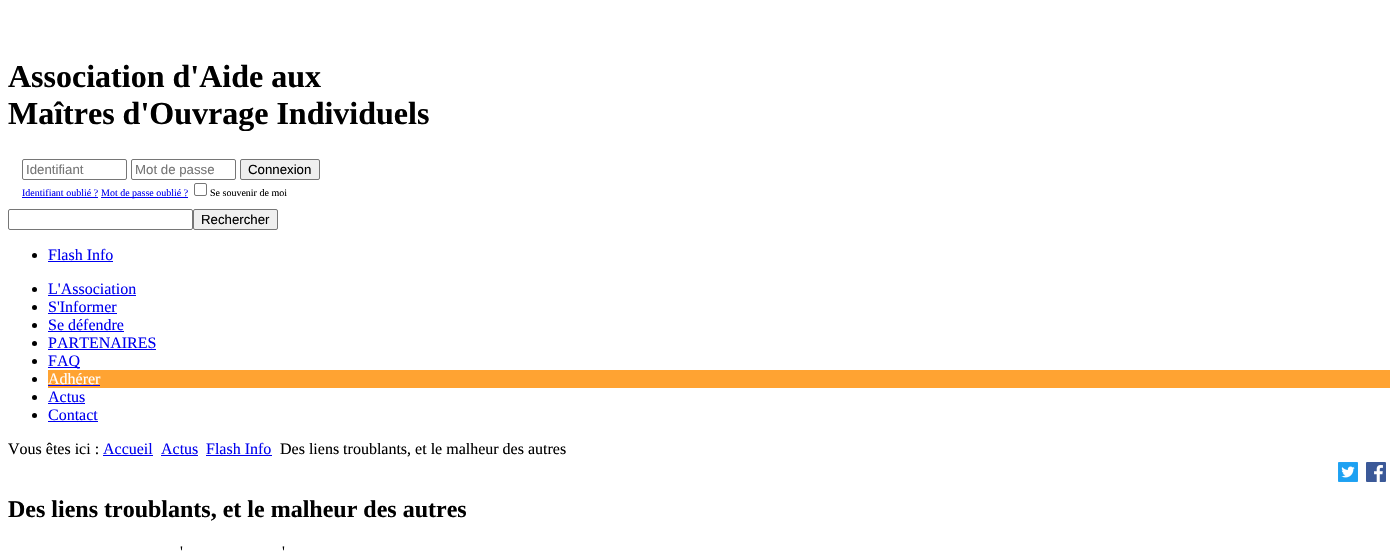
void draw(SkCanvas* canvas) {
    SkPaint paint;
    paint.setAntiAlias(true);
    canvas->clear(0xFFFFFFFF);
    SkFont font1(fontMgr->matchFamilyStyle("Liberation Serif", SkFontStyle::Bold()), 32);
    font1.setSubpixel(true);
    paint.setColor(0xFF000000);
    canvas->drawString("Association d'Aide aux", 8, 87, font1, paint);
    canvas->drawString("Maîtres d'Ouvrage Individuels", 8, 124, font1, paint);
    paint.setStyle(SkPaint::kStroke_Style);
    paint.setStrokeWidth(1);
    paint.setColor(0xFF767676);
    canvas->drawRoundRect(SkRect::MakeXYWH(22.5f, 159.5f, 104, 20), 1.5f, 1.5f, paint);
    SkFont font2(fontMgr->matchFamilyStyle("Liberation Sans", SkFontStyle::Normal()), 13.25f);
    font2.setSubpixel(true);
    paint.setStyle(SkPaint::kFill_Style);
    paint.setColor(0xFF757575);
    canvas->drawString("Identifiant", 26, 174, font2, paint);
    paint.setStyle(SkPaint::kStroke_Style);
    paint.setColor(0xFF767676);
    canvas->drawRoundRect(SkRect::MakeXYWH(131.5f, 159.5f, 104, 20), 1.5f, 1.5f, paint);
    paint.setStyle(SkPaint::kFill_Style);
    paint.setColor(0xFF757575);
    canvas->drawString("Mot de passe", 135, 174, font2, paint);
    paint.setColor(0xFFEFEFEF);
    canvas->drawRoundRect(SkRect::MakeXYWH(240.5f, 159.5f, 79, 20), 1.5f, 1.5f, paint);
    paint.setStyle(SkPaint::kStroke_Style);
    paint.setColor(0xFF767676);
    canvas->drawRoundRect(SkRect::MakeXYWH(240.5f, 159.5f, 79, 20), 1.5f, 1.5f, paint);
    paint.setStyle(SkPaint::kFill_Style);
    paint.setColor(0xFF000000);
    canvas->drawString("Connexion", 248, 174, font2, paint);
    SkFont font3(fontMgr->matchFamilyStyle("Liberation Serif", SkFontStyle::Normal()), 10);
    font3.setSubpixel(true);
    paint.setColor(0xFF0000EE);
    canvas->drawString("Identifiant oublié ?", 22, 196, font3, paint);
    canvas->drawRect(SkRect::MakeXYWH(22, 197, 76, 1), paint);
    canvas->drawRect(SkRect::MakeXYWH(101, 197, 87, 1), paint);
    canvas->drawString("Mot de passe oublié ?", 101, 196, font3, paint);
    paint.setStyle(SkPaint::kStroke_Style);
    paint.setColor(0xFF767676);
    canvas->drawRoundRect(SkRect::MakeXYWH(194.5f, 183.5f, 12, 12), 1.5f, 1.5f, paint);
    paint.setStyle(SkPaint::kFill_Style);
    paint.setColor(0xFF000000);
    canvas->drawString("Se souvenir de moi", 210, 196, font3, paint);
    paint.setStyle(SkPaint::kStroke_Style);
    paint.setColor(0xFF767676);
    canvas->drawRoundRect(SkRect::MakeXYWH(8.5f, 209.5f, 184, 20), 1.5f, 1.5f, paint);
    paint.setStyle(SkPaint::kFill_Style);
    paint.setColor(0xFFEFEFEF);
    canvas->drawRoundRect(SkRect::MakeXYWH(193.5f, 209.5f, 84, 20), 1.5f, 1.5f, paint);
    paint.setStyle(SkPaint::kStroke_Style);
    paint.setColor(0xFF767676);
    canvas->drawRoundRect(SkRect::MakeXYWH(193.5f, 209.5f, 84, 20), 1.5f, 1.5f, paint);
    paint.setStyle(SkPaint::kFill_Style);
    paint.setColor(0xFF000000);
    canvas->drawString("Rechercher", 201, 224, font2, paint);
    canvas->drawCircle(34.5f, 255.5f, 2.5f, paint);
    SkFont font4(fontMgr->matchFamilyStyle("Liberation Serif", SkFontStyle::Normal()), 16);
    font4.setSubpixel(true);
    paint.setColor(0xFF0000EE);
    canvas->drawString("Flash Info", 48, 260, font4, paint);
    canvas->drawRect(SkRect::MakeXYWH(48, 261, 65, 1), paint);
    paint.setColor(0xFF000000);
    canvas->drawCircle(34.5f, 289.5f, 2.5f, paint);
    paint.setColor(0xFF0000EE);
    canvas->drawString("L'Association", 48, 294, font4, paint);
    canvas->drawRect(SkRect::MakeXYWH(48, 295, 88, 1), paint);
    paint.setColor(0xFF000000);
    canvas->drawCircle(34.5f, 307.5f, 2.5f, paint);
    paint.setColor(0xFF0000EE);
    canvas->drawString("S'Informer", 48, 312, font4, paint);
    canvas->drawRect(SkRect::MakeXYWH(48, 313, 69, 1), paint);
    paint.setColor(0xFF000000);
    canvas->drawCircle(34.5f, 325.5f, 2.5f, paint);
    paint.setColor(0xFF0000EE);
    canvas->drawString("Se défendre", 48, 330, font4, paint);
    canvas->drawRect(SkRect::MakeXYWH(48, 331, 76, 1), paint);
    paint.setColor(0xFF000000);
    canvas->drawCircle(34.5f, 343.5f, 2.5f, paint);
    paint.setColor(0xFF0000EE);
    canvas->drawString("PARTENAIRES", 48, 348, font4, paint);
    canvas->drawRect(SkRect::MakeXYWH(48, 349, 108, 1), paint);
    paint.setColor(0xFF000000);
    canvas->drawCircle(34.5f, 361.5f, 2.5f, paint);
    paint.setColor(0xFF0000EE);
    canvas->drawRect(SkRect::MakeXYWH(48, 367, 32, 1), paint);
    canvas->drawString("FAQ", 48, 366, font4, paint);
    paint.setColor(0xFFFFA332);
    canvas->drawRect(SkRect::MakeXYWH(48, 370, 1342, 18), paint);
    paint.setColor(0xFF000000);
    canvas->drawCircle(34.5f, 379.5f, 2.5f, paint);
    paint.setColor(0xFFFFFFFF);
    canvas->drawString("Adhérer", 48, 384, font4, paint);
    paint.setColor(0xFF0000EE);
    canvas->drawRect(SkRect::MakeXYWH(48, 385, 52, 1), paint);
    paint.setColor(0xFF000000);
    canvas->drawCircle(34.5f, 397.5f, 2.5f, paint);
    paint.setColor(0xFF0000EE);
    canvas->drawString("Actus", 48, 402, font4, paint);
    canvas->drawRect(SkRect::MakeXYWH(48, 403, 37, 1), paint);
    paint.setColor(0xFF000000);
    canvas->drawCircle(34.5f, 415.5f, 2.5f, paint);
    paint.setColor(0xFF0000EE);
    canvas->drawString("Contact", 48, 420, font4, paint);
    canvas->drawRect(SkRect::MakeXYWH(48, 421, 50, 1), paint);
    paint.setColor(0xFF000000);
    canvas->drawString("Vous êtes ici :", 8, 454, font4, paint);
    paint.setColor(0xFF0000EE);
    canvas->drawString("Accueil", 103, 454, font4, paint);
    canvas->drawRect(SkRect::MakeXYWH(103, 455, 50, 1), paint);
    canvas->drawString("Actus", 161, 454, font4, paint);
    canvas->drawRect(SkRect::MakeXYWH(161, 455, 37, 1), paint);
    canvas->drawString("Flash Info", 206, 454, font4, paint);
    canvas->drawRect(SkRect::MakeXYWH(206, 455, 66, 1), paint);
    paint.setColor(0xFF000000);
    canvas->drawString("Des liens troublants, et le malheur des autres", 280, 454, font4, paint);
    canvas->drawImageRect(SkImages::DeferredFromEncodedData(SkData::MakeFromFileName("img1.png")), SkRect::MakeXYWH(1338, 462, 20, 20), SkSamplingOptions());
    canvas->drawImageRect(SkImages::DeferredFromEncodedData(SkData::MakeFromFileName("img2.png")), SkRect::MakeXYWH(1366, 462, 20, 20), SkSamplingOptions());
    SkFont font5(fontMgr->matchFamilyStyle("Liberation Serif", SkFontStyle::Bold()), 24);
    font5.setSubpixel(true);
    canvas->drawString("Des liens troublants, et le malheur des autres", 8, 517, font5, paint);
    canvas->drawString("'", 180, 557, font4, paint);
    canvas->drawString("'", 282, 557, font4, paint);
}
